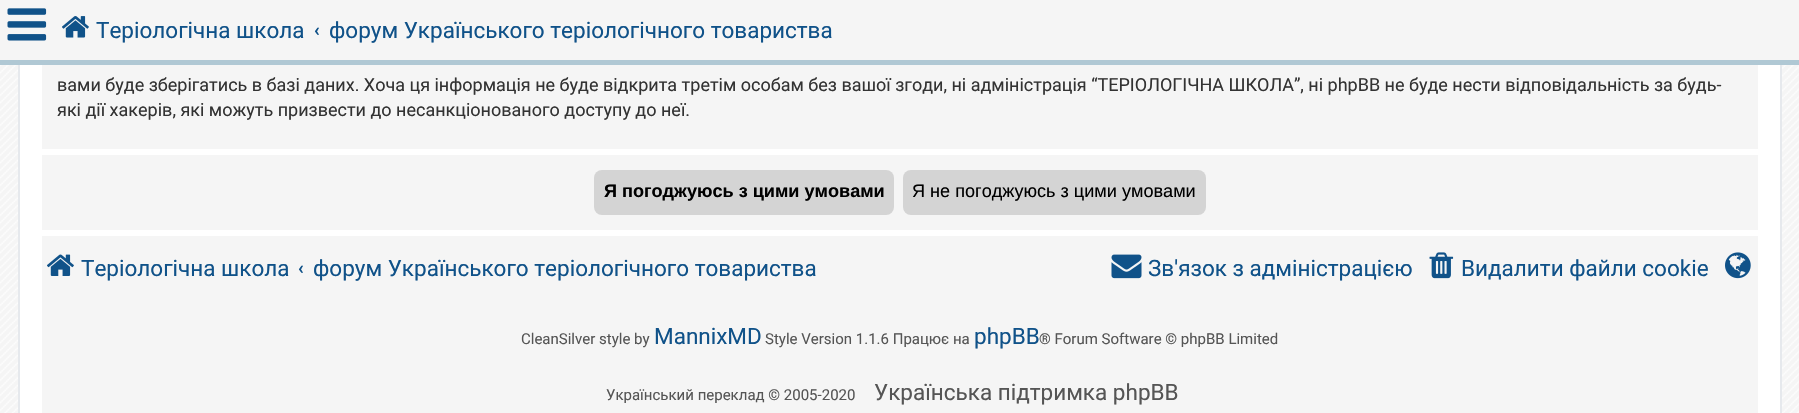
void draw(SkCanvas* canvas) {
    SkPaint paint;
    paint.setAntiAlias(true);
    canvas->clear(0xFFFFFFFF);
    canvas->drawImageRect(SkImages::DeferredFromEncodedData(SkData::MakeFromFileName("img1.png")), SkRect::MakeXYWH(0, 65, 1799, 348), SkSamplingOptions());
    paint.setColor(0xFFFFFFFF);
    canvas->drawRect(SkRect::MakeXYWH(20, 65, 1760, 348), paint);
    paint.setStyle(SkPaint::kStroke_Style);
    paint.setStrokeWidth(2);
    paint.setColor(0xFFE6E9ED);
    canvas->drawRect(SkRect::MakeXYWH(19, -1, 1762, 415), paint);
    paint.setStyle(SkPaint::kFill_Style);
    paint.setColor(0xFFF5F5F5);
    canvas->drawRect(SkRect::MakeXYWH(0, 0, 1799, 60), paint);
    paint.setColor(0xFFB0C8D4);
    canvas->drawRect(SkRect::MakeXYWH(0, 60, 1799, 5), paint);
    canvas->drawImageRect(SkImages::DeferredFromEncodedData(SkData::MakeFromFileName("img2.png")), SkRect::MakeXYWH(7, 8, 40, 33), SkSamplingOptions());
    canvas->drawImageRect(SkImages::DeferredFromEncodedData(SkData::MakeFromFileName("img3.png")), SkRect::MakeXYWH(62, 16, 27, 22), SkSamplingOptions());
    SkFont font1(fontMgr->matchFamilyStyle("Roboto", SkFontStyle::Normal()), 22.5f);
    font1.setSubpixel(true);
    paint.setColor(0xFF105289);
    canvas->drawString("Теріологічна школа", 96, 38, font1, paint);
    SkFont font2(fontMgr->matchFamilyStyle("Roboto", SkFontStyle::Bold()), 18.1f);
    font2.setSubpixel(true);
    canvas->drawString("‹", 314, 36, font2, paint);
    canvas->drawString("форум Українського теріологічного товариства", 329, 38, font1, paint);
    paint.setColor(0xFFF5F5F5);
    canvas->drawRect(SkRect::MakeXYWH(42, 65, 1716, 84), paint);
    SkFont font3(fontMgr->matchFamilyStyle("Roboto", SkFontStyle::Normal()), 18);
    font3.setSubpixel(true);
    paint.setColor(0xFF333333);
    canvas->drawString("вами буде зберігатись в базі даних. Хоча ця інформація не буде відкрита третім особам без вашої згоди, ні адміністрація “ТЕРІОЛОГІЧНА ШКОЛА”, ні phpBB не буде нести відповідальність за будь-", 57, 91, font3, paint);
    canvas->drawString("які дії хакерів, які можуть призвести до несанкціонованого доступу до неї.", 57, 116, font3, paint);
    paint.setColor(0xFFF5F5F5);
    canvas->drawRect(SkRect::MakeXYWH(42, 155, 1716, 75), paint);
    paint.setColor(0xFFD4D4D4);
    canvas->drawRoundRect(SkRect::MakeXYWH(594, 170, 300, 45), 8, 8, paint);
    SkFont font4(fontMgr->matchFamilyStyle("Liberation Sans", SkFontStyle::Bold()), 18.1f);
    font4.setSubpixel(true);
    paint.setColor(0xFF000000);
    canvas->drawString("Я погоджуюсь з цими умовами", 604, 197, font4, paint);
    paint.setColor(0xFFD4D4D4);
    canvas->drawRoundRect(SkRect::MakeXYWH(903, 170, 303, 45), 8, 8, paint);
    SkFont font5(fontMgr->matchFamilyStyle("Liberation Sans", SkFontStyle::Normal()), 18.1f);
    font5.setSubpixel(true);
    paint.setColor(0xFF000000);
    canvas->drawString("Я не погоджуюсь з цими умовами", 912, 197, font5, paint);
    paint.setColor(0xFFF5F5F5);
    canvas->drawRect(SkRect::MakeXYWH(42, 236, 1716, 177), paint);
    canvas->drawImageRect(SkImages::DeferredFromEncodedData(SkData::MakeFromFileName("img4.png")), SkRect::MakeXYWH(47, 254, 27, 22), SkSamplingOptions());
    paint.setColor(0xFF105289);
    canvas->drawString("Теріологічна школа", 81, 276, font1, paint);
    canvas->drawString("‹", 298, 274, font2, paint);
    canvas->drawString("форум Українського теріологічного товариства", 313, 276, font1, paint);
    canvas->drawImageRect(SkImages::DeferredFromEncodedData(SkData::MakeFromFileName("img5.png")), SkRect::MakeXYWH(1111, 254, 31, 25), SkSamplingOptions());
    canvas->drawString("Зв'язок з адміністрацією", 1148, 276, font1, paint);
    canvas->drawImageRect(SkImages::DeferredFromEncodedData(SkData::MakeFromFileName("img6.png")), SkRect::MakeXYWH(1429, 252, 25, 27), SkSamplingOptions());
    canvas->drawString("Видалити файли cookie", 1461, 276, font1, paint);
    canvas->drawImageRect(SkImages::DeferredFromEncodedData(SkData::MakeFromFileName("img7.png")), SkRect::MakeXYWH(1725, 252, 26, 27), SkSamplingOptions());
    SkFont font6(fontMgr->matchFamilyStyle("Roboto", SkFontStyle::Normal()), 15);
    font6.setSubpixel(true);
    paint.setColor(0xFF555555);
    canvas->drawString("CleanSilver style by", 521, 344, font6, paint);
    paint.setColor(0xFF105289);
    canvas->drawString("MannixMD", 654, 344, font1, paint);
    paint.setColor(0xFF555555);
    canvas->drawString("Style Version 1.1.6 Працює на", 765, 344, font6, paint);
    paint.setColor(0xFF105289);
    canvas->drawString("phpBB", 974, 344, font1, paint);
    paint.setColor(0xFF555555);
    canvas->drawString("® Forum Software © phpBB Limited", 1039, 344, font6, paint);
    canvas->drawString("Український переклад © 2005-2020", 606, 400, font6, paint);
    canvas->drawString("Українська підтримка phpBB", 874, 400, font1, paint);
}
